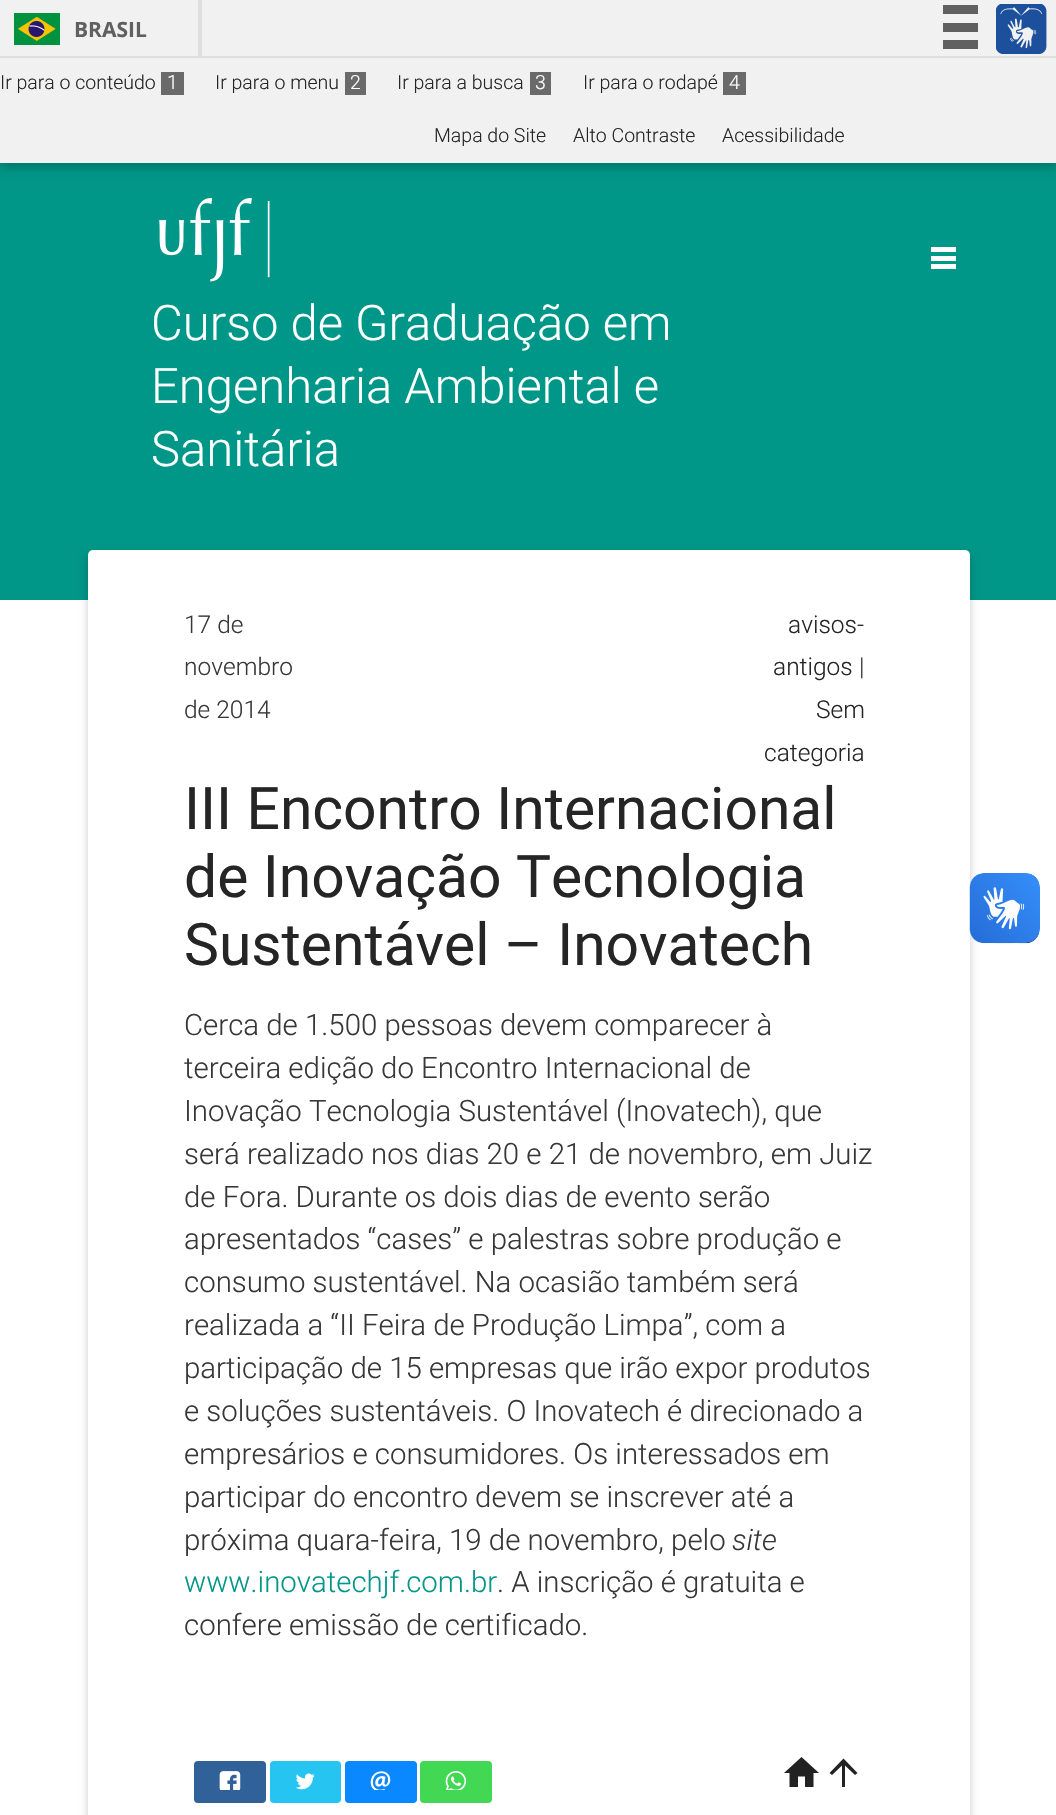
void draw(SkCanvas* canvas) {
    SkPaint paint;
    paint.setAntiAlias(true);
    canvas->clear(0xFFFFFFFF);
    paint.setColor(0xFF009688);
    canvas->drawRect(SkRect::MakeXYWH(0, 163, 1056, 437), paint);
    paint.setColor(0x33000000);
    paint.setMaskFilter(SkMaskFilter::MakeBlur(kNormal_SkBlurStyle, 4.5f));
    canvas->drawRect(SkRect::MakeXYWH(0, 5, 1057, 163), paint);
    paint.setMaskFilter(nullptr);
    paint.setColor(0xFFF1F1F1);
    canvas->drawRect(SkRect::MakeXYWH(0, 0, 1056, 56), paint);
    paint.setColor(0xFFDFDFDF);
    canvas->drawRect(SkRect::MakeXYWH(0, 56, 1056, 2), paint);
    canvas->drawRect(SkRect::MakeXYWH(198, 0, 4, 56), paint);
    canvas->drawImageRect(SkImages::DeferredFromEncodedData(SkData::MakeFromFileName("img1.png")), SkRect::MakeXYWH(14, 13, 46, 32), SkSamplingOptions());
    SkFont font1(fontMgr->matchFamilyStyle("Open Sans", SkFontStyle::Bold()), 21);
    font1.setSubpixel(true);
    paint.setColor(0xFF606060);
    canvas->drawString("BRASIL", 74, 37, font1, paint);
    canvas->drawRect(SkRect::MakeXYWH(943, 5, 35, 9), paint);
    canvas->drawRect(SkRect::MakeXYWH(943, 23, 35, 9), paint);
    canvas->drawRect(SkRect::MakeXYWH(943, 40, 35, 9), paint);
    canvas->drawImageRect(SkImages::DeferredFromEncodedData(SkData::MakeFromFileName("img2.png")), SkRect::MakeXYWH(996, 4, 51, 50), SkSamplingOptions());
    paint.setColor(0xFFF1F1F1);
    canvas->drawRect(SkRect::MakeXYWH(0, 58, 1056, 105), paint);
    SkFont font2(fontMgr->matchFamilyStyle("Roboto", SkFontStyle(300, SkFontStyle::kNormal_Width, SkFontStyle::kUpright_Slant)), 19.5f);
    font2.setSubpixel(true);
    paint.setColor(0xFF252525);
    canvas->drawString("Ir para o conteúdo", 0, 89, font2, paint);
    paint.setColor(0xFF6A6A6A);
    canvas->drawRect(SkRect::MakeXYWH(161, 72, 23, 23), paint);
    paint.setColor(0xFFFFFFFF);
    canvas->drawString("1", 167, 89, font2, paint);
    paint.setColor(0xFF252525);
    canvas->drawString("Ir para o menu", 215, 89, font2, paint);
    paint.setColor(0xFF6A6A6A);
    canvas->drawRect(SkRect::MakeXYWH(345, 72, 21, 23), paint);
    paint.setColor(0xFFFFFFFF);
    canvas->drawString("2", 350, 89, font2, paint);
    paint.setColor(0xFF252525);
    canvas->drawString("Ir para a busca", 397, 89, font2, paint);
    paint.setColor(0xFF6A6A6A);
    canvas->drawRect(SkRect::MakeXYWH(530, 72, 21, 23), paint);
    paint.setColor(0xFFFFFFFF);
    canvas->drawString("3", 535, 89, font2, paint);
    paint.setColor(0xFF252525);
    canvas->drawString("Ir para o rodapé", 583, 89, font2, paint);
    paint.setColor(0xFF6A6A6A);
    canvas->drawRect(SkRect::MakeXYWH(723, 72, 23, 23), paint);
    paint.setColor(0xFFFFFFFF);
    canvas->drawString("4", 729, 89, font2, paint);
    paint.setColor(0xFF252525);
    canvas->drawString("Mapa do Site", 434, 142, font2, paint);
    canvas->drawString("Alto Contraste", 573, 142, font2, paint);
    canvas->drawString("Acessibilidade", 722, 142, font2, paint);
    paint.setColor(0xFFFFFFFF);
    canvas->drawRect(SkRect::MakeXYWH(931, 256, 25, 5), paint);
    canvas->drawRect(SkRect::MakeXYWH(931, 247, 25, 5), paint);
    canvas->drawRect(SkRect::MakeXYWH(931, 264, 25, 5), paint);
    canvas->drawImageRect(SkImages::DeferredFromEncodedData(SkData::MakeFromFileName("img3.png")), SkRect::MakeXYWH(159, 198, 111, 84), SkSamplingOptions());
    SkFont font3(fontMgr->matchFamilyStyle("Roboto", SkFontStyle(300, SkFontStyle::kNormal_Width, SkFontStyle::kUpright_Slant)), 49);
    font3.setSubpixel(true);
    canvas->drawString("Curso de Graduação em", 151, 340, font3, paint);
    canvas->drawString("Engenharia Ambiental e", 151, 403, font3, paint);
    canvas->drawString("Sanitária", 151, 466, font3, paint);
    paint.setColor(0x33000000);
    paint.setMaskFilter(SkMaskFilter::MakeBlur(kNormal_SkBlurStyle, 4.5f));
    canvas->drawRoundRect(SkRect::MakeXYWH(88, 555, 882, 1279), 5, 5, paint);
    paint.setMaskFilter(nullptr);
    paint.setColor(0xFFFFFFFF);
    canvas->drawRoundRect(SkRect::MakeXYWH(88, 550, 882, 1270), 5, 5, paint);
    SkFont font4(fontMgr->matchFamilyStyle("Roboto", SkFontStyle(300, SkFontStyle::kNormal_Width, SkFontStyle::kUpright_Slant)), 24.5f);
    font4.setSubpixel(true);
    paint.setColor(0xFF373737);
    canvas->drawString("17 de", 184, 633, font4, paint);
    canvas->drawString("novembro", 184, 675, font4, paint);
    canvas->drawString("de 2014", 184, 718, font4, paint);
    paint.setColor(0xFF252525);
    canvas->drawString("avisos-", 788, 633, font4, paint);
    canvas->drawString("antigos", 773, 675, font4, paint);
    paint.setColor(0xFF373737);
    canvas->drawString("|", 859, 675, font4, paint);
    paint.setColor(0xFF252525);
    canvas->drawString("Sem", 816, 718, font4, paint);
    canvas->drawString("categoria", 764, 761, font4, paint);
    SkFont font5(fontMgr->matchFamilyStyle("Roboto", SkFontStyle::Normal()), 58.75f);
    font5.setSubpixel(true);
    canvas->drawString("III Encontro Internacional", 184, 829, font5, paint);
    canvas->drawString("de Inovação Tecnologia", 184, 897, font5, paint);
    canvas->drawString("Sustentável – Inovatech", 184, 965, font5, paint);
    SkFont font6(fontMgr->matchFamilyStyle("Roboto", SkFontStyle(300, SkFontStyle::kNormal_Width, SkFontStyle::kUpright_Slant)), 29.4f);
    font6.setSubpixel(true);
    paint.setColor(0xFF373737);
    canvas->drawString("Cerca de 1.500 pessoas devem comparecer à", 184, 1035, font6, paint);
    canvas->drawString("terceira edição do Encontro Internacional de", 184, 1078, font6, paint);
    canvas->drawString("Inovação Tecnologia Sustentável (Inovatech), que", 184, 1121, font6, paint);
    canvas->drawString("será realizado nos dias 20 e 21 de novembro, em Juiz", 184, 1164, font6, paint);
    canvas->drawString("de Fora. Durante os dois dias de evento serão", 184, 1207, font6, paint);
    canvas->drawString("apresentados “cases” e palestras sobre produção e", 184, 1249, font6, paint);
    canvas->drawString("consumo sustentável. Na ocasião também será", 184, 1292, font6, paint);
    canvas->drawString("realizada a “II Feira de Produção Limpa”, com a", 184, 1335, font6, paint);
    canvas->drawString("participação de 15 empresas que irão expor produtos", 184, 1378, font6, paint);
    canvas->drawString("e soluções sustentáveis. O Inovatech é direcionado a", 184, 1421, font6, paint);
    canvas->drawString("empresários e consumidores. Os interessados em", 184, 1464, font6, paint);
    canvas->drawString("participar do encontro devem se inscrever até a", 184, 1507, font6, paint);
    canvas->drawString("próxima quara-feira, 19 de novembro, pelo", 184, 1550, font6, paint);
    SkFont font7(fontMgr->matchFamilyStyle("Roboto", SkFontStyle(300, SkFontStyle::kNormal_Width, SkFontStyle::kItalic_Slant)), 29.4f);
    font7.setSubpixel(true);
    canvas->drawString("site", 732, 1550, font7, paint);
    paint.setColor(0xFF009688);
    canvas->drawString("www.inovatechjf.com.br", 184, 1592, font6, paint);
    paint.setColor(0xFF373737);
    canvas->drawString(". A inscrição é gratuita e", 497, 1592, font6, paint);
    canvas->drawString("confere emissão de certificado.", 184, 1635, font6, paint);
    paint.setColor(0xFF306199);
    canvas->drawRoundRect(SkRect::MakeXYWH(194, 1761, 72, 42), 4, 4, paint);
    canvas->drawImageRect(SkImages::DeferredFromEncodedData(SkData::MakeFromFileName("img4.png")), SkRect::MakeXYWH(219, 1771, 22, 19), SkSamplingOptions());
    paint.setColor(0xFF26C4F1);
    canvas->drawRoundRect(SkRect::MakeXYWH(270, 1761, 71, 42), 4, 4, paint);
    canvas->drawImageRect(SkImages::DeferredFromEncodedData(SkData::MakeFromFileName("img5.png")), SkRect::MakeXYWH(295, 1773, 20, 17), SkSamplingOptions());
    paint.setColor(0xFF0A88FF);
    canvas->drawRoundRect(SkRect::MakeXYWH(345, 1761, 72, 42), 4, 4, paint);
    canvas->drawImageRect(SkImages::DeferredFromEncodedData(SkData::MakeFromFileName("img6.png")), SkRect::MakeXYWH(370, 1771, 21, 19), SkSamplingOptions());
    paint.setColor(0xFF43D854);
    canvas->drawRoundRect(SkRect::MakeXYWH(420, 1761, 72, 42), 4, 4, paint);
    canvas->drawImageRect(SkImages::DeferredFromEncodedData(SkData::MakeFromFileName("img7.png")), SkRect::MakeXYWH(445, 1771, 22, 19), SkSamplingOptions());
    paint.setColor(0xFF222222);
    canvas->drawPath(SkPathBuilder().moveTo(798, 1787).lineTo(789.5f, 1787).lineTo(789.5f, 1773).lineTo(784, 1773).lineTo(801.5f, 1757).lineTo(819, 1773).lineTo(813.5f, 1773).lineTo(813.5f, 1787).lineTo(805, 1787).lineTo(805, 1776.5f).lineTo(798, 1776.5f).close().detach(), paint);
    canvas->drawPath(SkPathBuilder().moveTo(829.5f, 1773).lineTo(843.5f, 1758.5f).lineTo(857.5f, 1773).lineTo(855, 1775).lineTo(845, 1765.5f).lineTo(845, 1787).lineTo(842, 1787).lineTo(842, 1765.5f).lineTo(832, 1775).close().detach(), paint);
    canvas->drawImageRect(SkImages::DeferredFromEncodedData(SkData::MakeFromFileName("img8.png")), SkRect::MakeXYWH(969, 873, 71, 71), SkSamplingOptions());
    canvas->drawImageRect(SkImages::DeferredFromEncodedData(SkData::MakeFromFileName("img9.png")), SkRect::MakeXYWH(970, 873, 70, 70), SkSamplingOptions());
}
